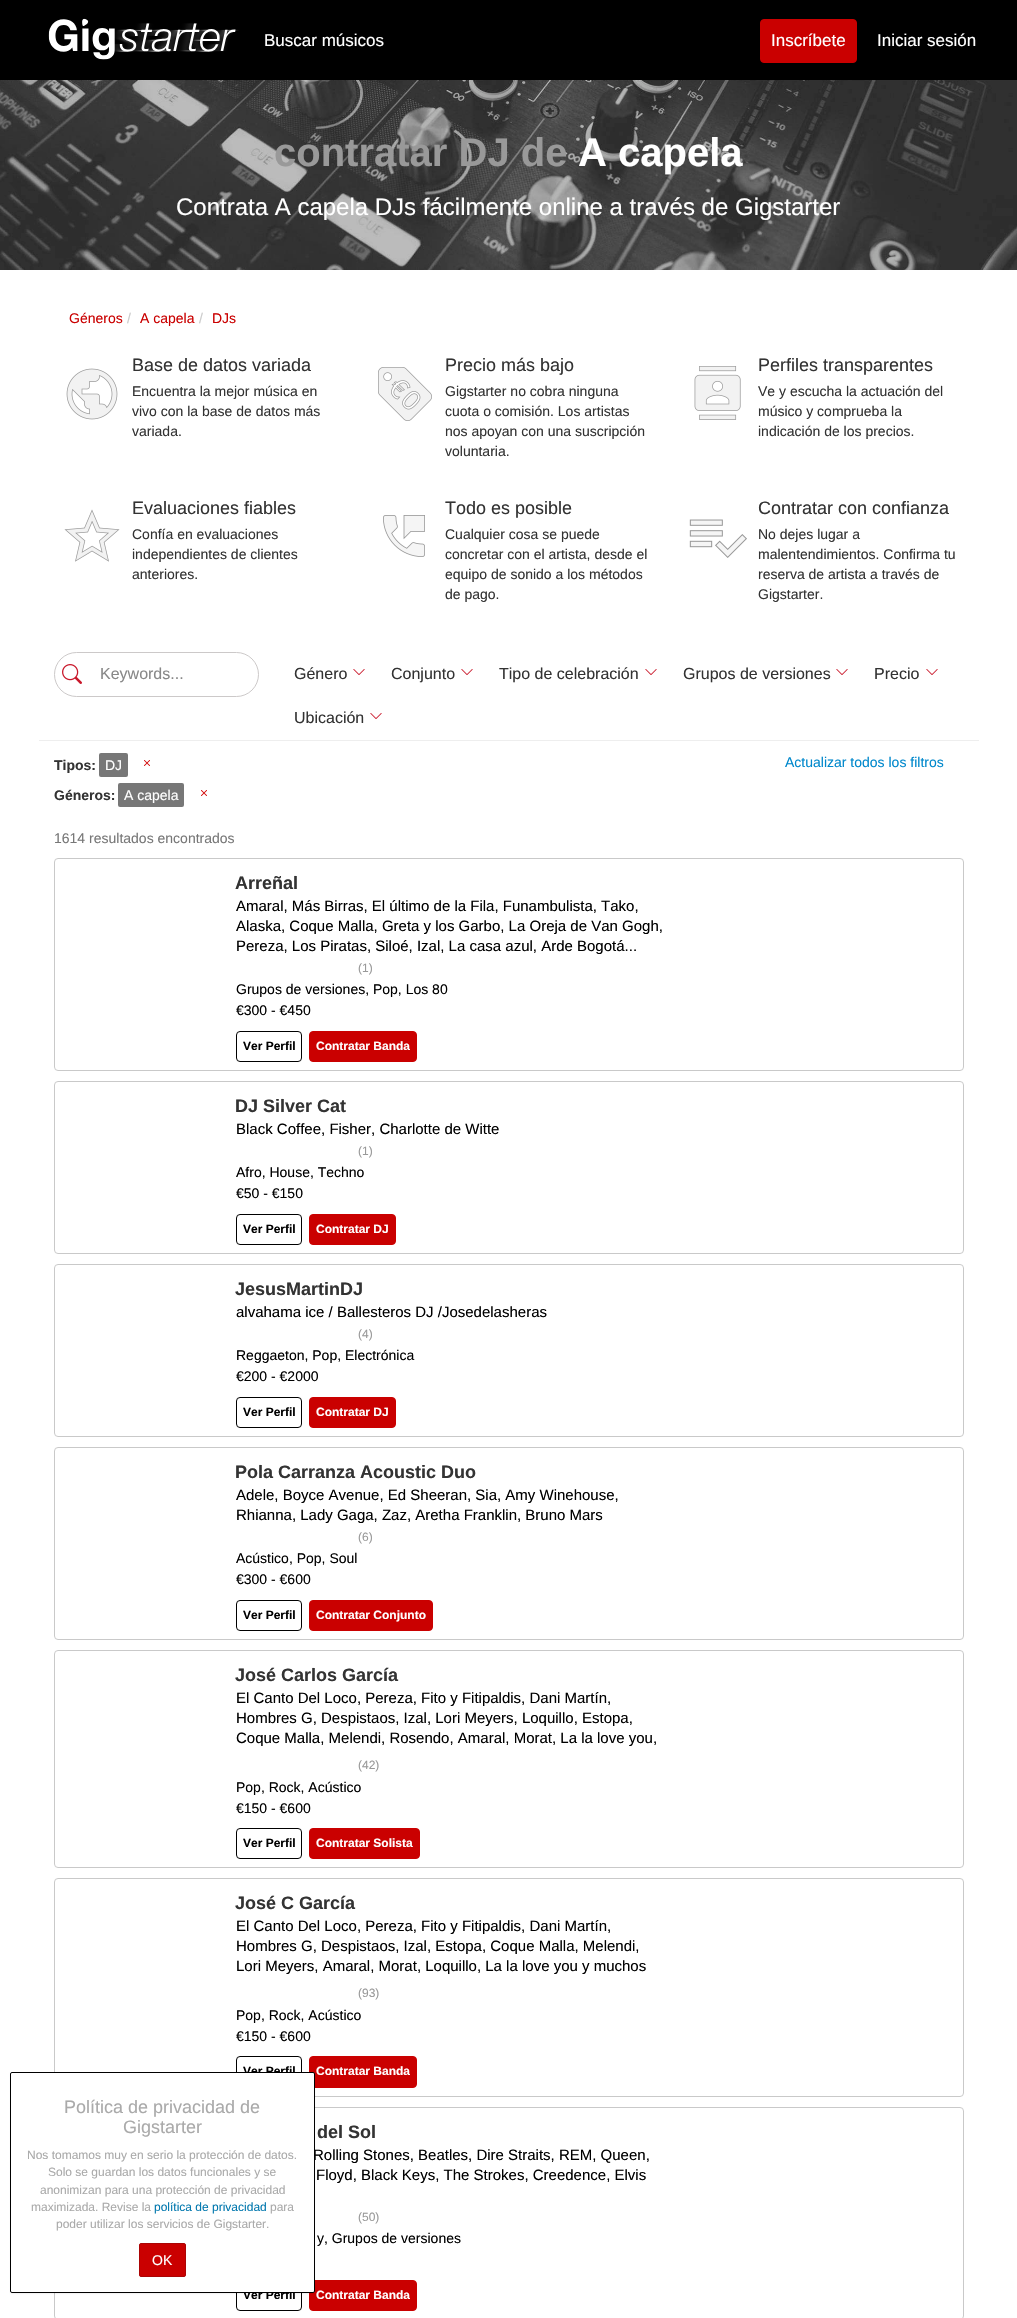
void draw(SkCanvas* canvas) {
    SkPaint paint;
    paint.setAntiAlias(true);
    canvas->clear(0xFFFFFFFF);
    paint.setColor(0xFF000000);
    canvas->drawRect(SkRect::MakeXYWH(0, 0, 1017, 80), paint);
    canvas->drawImageRect(SkImages::DeferredFromEncodedData(SkData::MakeFromFileName("img1.png")), SkRect::MakeXYWH(48, 18, 191, 42), SkSamplingOptions());
    SkFont font1(fontMgr->matchFamilyStyle("Liberation Sans", SkFontStyle::Normal()), 17);
    font1.setSubpixel(true);
    paint.setColor(0xFFFFFFFF);
    canvas->drawString("Buscar músicos", 264, 46, font1, paint);
    paint.setColor(0xFFCA0000);
    canvas->drawRoundRect(SkRect::MakeXYWH(760.5f, 19.5f, 96, 43), 3.5f, 3.5f, paint);
    paint.setStyle(SkPaint::kStroke_Style);
    paint.setStrokeWidth(1);
    canvas->drawRoundRect(SkRect::MakeXYWH(760.5f, 19.5f, 96, 43), 3.5f, 3.5f, paint);
    paint.setStyle(SkPaint::kFill_Style);
    paint.setColor(0xFFFFFFFF);
    canvas->drawString("Inscríbete", 771, 46, font1, paint);
    canvas->drawString("Iniciar sesión", 877, 46, font1, paint);
    canvas->drawImageRect(SkImages::DeferredFromEncodedData(SkData::MakeFromFileName("img2.png")), SkRect::MakeXYWH(0, 80, 1017, 190), SkSamplingOptions());
    SkFont font2(fontMgr->matchFamilyStyle("Liberation Sans", SkFontStyle::Bold()), 40);
    font2.setSubpixel(true);
    paint.setColor(0xFF999999);
    canvas->drawString("contratar DJ de", 274, 166, font2, paint);
    paint.setColor(0xFFFFFFFF);
    canvas->drawString("A capela", 578, 166, font2, paint);
    SkFont font3(fontMgr->matchFamilyStyle("Liberation Sans", SkFontStyle::Normal()), 24);
    font3.setSubpixel(true);
    canvas->drawString("Contrata A capela DJs fácilmente online a través de Gigstarter", 176, 215, font3, paint);
    SkFont font4(fontMgr->matchFamilyStyle("Liberation Sans", SkFontStyle::Normal()), 14);
    font4.setSubpixel(true);
    paint.setColor(0xFFCA0000);
    canvas->drawString("Géneros", 69, 323, font4, paint);
    paint.setColor(0xFFCCCCCC);
    canvas->drawString("/", 127, 323, font4, paint);
    paint.setColor(0xFFCA0000);
    canvas->drawString("A capela", 140, 323, font4, paint);
    paint.setColor(0xFFCCCCCC);
    canvas->drawString("/", 199, 323, font4, paint);
    paint.setColor(0xFFCA0000);
    canvas->drawString("DJs", 212, 323, font4, paint);
    canvas->drawImageRect(SkImages::DeferredFromEncodedData(SkData::MakeFromFileName("img3.png")), SkRect::MakeXYWH(66, 368, 52, 52), SkSamplingOptions());
    SkFont font5(fontMgr->matchFamilyStyle("Liberation Sans", SkFontStyle::Normal()), 18);
    font5.setSubpixel(true);
    paint.setColor(0xFF333333);
    canvas->drawString("Base de datos variada", 132, 371, font5, paint);
    canvas->drawString("Encuentra la mejor música en", 132, 396, font4, paint);
    canvas->drawString("vivo con la base de datos más", 132, 416, font4, paint);
    canvas->drawString("variada.", 132, 436, font4, paint);
    canvas->drawImageRect(SkImages::DeferredFromEncodedData(SkData::MakeFromFileName("img4.png")), SkRect::MakeXYWH(378, 367, 54, 54), SkSamplingOptions());
    canvas->drawString("Precio más bajo", 445, 371, font5, paint);
    canvas->drawString("Gigstarter no cobra ninguna", 445, 396, font4, paint);
    canvas->drawString("cuota o comisión. Los artistas", 445, 416, font4, paint);
    canvas->drawString("nos apoyan con una suscripción", 445, 436, font4, paint);
    canvas->drawString("voluntaria.", 445, 456, font4, paint);
    canvas->drawImageRect(SkImages::DeferredFromEncodedData(SkData::MakeFromFileName("img5.png")), SkRect::MakeXYWH(694, 366, 47, 54), SkSamplingOptions());
    canvas->drawString("Perfiles transparentes", 758, 371, font5, paint);
    canvas->drawString("Ve y escucha la actuación del", 758, 396, font4, paint);
    canvas->drawString("músico y comprueba la", 758, 416, font4, paint);
    canvas->drawString("indicación de los precios.", 758, 436, font4, paint);
    canvas->drawImageRect(SkImages::DeferredFromEncodedData(SkData::MakeFromFileName("img6.png")), SkRect::MakeXYWH(64, 509, 56, 53), SkSamplingOptions());
    canvas->drawString("Evaluaciones fiables", 132, 514, font5, paint);
    canvas->drawString("Confía en evaluaciones", 132, 539, font4, paint);
    canvas->drawString("independientes de clientes", 132, 559, font4, paint);
    canvas->drawString("anteriores.", 132, 579, font4, paint);
    canvas->drawImageRect(SkImages::DeferredFromEncodedData(SkData::MakeFromFileName("img7.png")), SkRect::MakeXYWH(383, 515, 42, 42), SkSamplingOptions());
    canvas->drawString("Todo es posible", 445, 514, font5, paint);
    canvas->drawString("Cualquier cosa se puede", 445, 539, font4, paint);
    canvas->drawString("concretar con el artista, desde el", 445, 559, font4, paint);
    canvas->drawString("equipo de sonido a los métodos", 445, 579, font4, paint);
    canvas->drawString("de pago.", 445, 599, font4, paint);
    canvas->drawImageRect(SkImages::DeferredFromEncodedData(SkData::MakeFromFileName("img8.png")), SkRect::MakeXYWH(689, 519, 58, 39), SkSamplingOptions());
    canvas->drawString("Contratar con confianza", 758, 514, font5, paint);
    canvas->drawString("No dejes lugar a", 758, 539, font4, paint);
    canvas->drawString("malentendimientos. Confirma tu", 758, 559, font4, paint);
    canvas->drawString("reserva de artista a través de", 758, 579, font4, paint);
    canvas->drawString("Gigstarter.", 758, 599, font4, paint);
    paint.setColor(0xFFEEEEEE);
    canvas->drawRect(SkRect::MakeXYWH(39, 740, 940, 1), paint);
    paint.setStyle(SkPaint::kStroke_Style);
    paint.setColor(0xFFCCC9C9);
    canvas->drawRoundRect(SkRect::MakeXYWH(54.5f, 652.5f, 204, 44), 22, 22, paint);
    canvas->drawImageRect(SkImages::DeferredFromEncodedData(SkData::MakeFromFileName("img9.png")), SkRect::MakeXYWH(62, 664, 20, 20), SkSamplingOptions());
    SkFont font6(fontMgr->matchFamilyStyle("Liberation Sans", SkFontStyle::Normal()), 16);
    font6.setSubpixel(true);
    paint.setStyle(SkPaint::kFill_Style);
    paint.setColor(0xFF888888);
    canvas->drawString("Keywords...", 100, 679, font6, paint);
    paint.setColor(0xFF333333);
    canvas->drawString("Género", 294, 679, font6, paint);
    canvas->drawImageRect(SkImages::DeferredFromEncodedData(SkData::MakeFromFileName("img10.png")), SkRect::MakeXYWH(353, 669, 12, 6), SkSamplingOptions());
    canvas->drawString("Conjunto", 391, 679, font6, paint);
    canvas->drawImageRect(SkImages::DeferredFromEncodedData(SkData::MakeFromFileName("img10.png")), SkRect::MakeXYWH(461, 669, 12, 6), SkSamplingOptions());
    canvas->drawString("Tipo de celebración", 499, 679, font6, paint);
    canvas->drawImageRect(SkImages::DeferredFromEncodedData(SkData::MakeFromFileName("img10.png")), SkRect::MakeXYWH(645, 669, 12, 6), SkSamplingOptions());
    canvas->drawString("Grupos de versiones", 683, 679, font6, paint);
    canvas->drawImageRect(SkImages::DeferredFromEncodedData(SkData::MakeFromFileName("img10.png")), SkRect::MakeXYWH(836, 669, 12, 6), SkSamplingOptions());
    canvas->drawString("Precio", 874, 679, font6, paint);
    canvas->drawImageRect(SkImages::DeferredFromEncodedData(SkData::MakeFromFileName("img10.png")), SkRect::MakeXYWH(926, 669, 12, 6), SkSamplingOptions());
    canvas->drawString("Ubicación", 294, 723, font6, paint);
    canvas->drawImageRect(SkImages::DeferredFromEncodedData(SkData::MakeFromFileName("img10.png")), SkRect::MakeXYWH(370, 713, 12, 6), SkSamplingOptions());
    SkFont font7(fontMgr->matchFamilyStyle("Liberation Sans", SkFontStyle::Bold()), 14);
    font7.setSubpixel(true);
    canvas->drawString("Tipos:", 54, 770, font7, paint);
    paint.setColor(0xFF777777);
    canvas->drawRoundRect(SkRect::MakeXYWH(99, 753, 29, 24), 2, 2, paint);
    paint.setColor(0xFFFFFFFF);
    canvas->drawString("DJ", 105, 770, font4, paint);
    canvas->drawImageRect(SkImages::DeferredFromEncodedData(SkData::MakeFromFileName("img11.png")), SkRect::MakeXYWH(144, 760, 6, 6), SkSamplingOptions());
    paint.setColor(0xFF333333);
    canvas->drawString("Géneros:", 54, 800, font7, paint);
    paint.setColor(0xFF777777);
    canvas->drawRoundRect(SkRect::MakeXYWH(118, 783, 66, 24), 2, 2, paint);
    paint.setColor(0xFFFFFFFF);
    canvas->drawString("A capela", 124, 800, font4, paint);
    canvas->drawImageRect(SkImages::DeferredFromEncodedData(SkData::MakeFromFileName("img11.png")), SkRect::MakeXYWH(201, 790, 6, 6), SkSamplingOptions());
    paint.setColor(0xFF0088CC);
    canvas->drawString("Actualizar todos los filtros", 785, 767, font4, paint);
    paint.setColor(0xFF777777);
    canvas->drawString("1614 resultados encontrados", 54, 843, font4, paint);
    paint.setStyle(SkPaint::kStroke_Style);
    paint.setColor(0xFFC9C9C9);
    canvas->drawRoundRect(SkRect::MakeXYWH(54.5f, 858.5f, 909, 212), 3.5f, 3.5f, paint);
    SkFont font8(fontMgr->matchFamilyStyle("Liberation Sans", SkFontStyle::Bold()), 18);
    font8.setSubpixel(true);
    paint.setStyle(SkPaint::kFill_Style);
    paint.setColor(0xFF333333);
    canvas->drawString("Arreñal", 235, 889, font8, paint);
    SkFont font9(fontMgr->matchFamilyStyle("Liberation Sans", SkFontStyle::Normal()), 15);
    font9.setSubpixel(true);
    paint.setColor(0xFF000000);
    canvas->drawString("Amaral, Más Birras, El último de la Fila, Funambulista, Tako,", 236, 911, font9, paint);
    canvas->drawString("Alaska, Coque Malla, Greta y los Garbo, La Oreja de Van Gogh,", 236, 931, font9, paint);
    canvas->drawString("Pereza, Los Piratas, Siloé, Izal, La casa azul, Arde Bogotá...", 236, 951, font9, paint);
    SkFont font10(fontMgr->matchFamilyStyle("Liberation Sans", SkFontStyle::Normal()), 12);
    font10.setSubpixel(true);
    paint.setColor(0xFF999999);
    canvas->drawString("(1)", 358, 972, font10, paint);
    paint.setColor(0xFF000000);
    canvas->drawString("Grupos de versiones, Pop, Los 80", 236, 994, font4, paint);
    canvas->drawString("€300 - €450", 236, 1015, font4, paint);
    paint.setStyle(SkPaint::kStroke_Style);
    canvas->drawRoundRect(SkRect::MakeXYWH(236.5f, 1031.5f, 65, 30), 3.5f, 3.5f, paint);
    SkFont font11(fontMgr->matchFamilyStyle("Liberation Sans", SkFontStyle::Bold()), 12);
    font11.setSubpixel(true);
    paint.setStyle(SkPaint::kFill_Style);
    canvas->drawString("Ver Perfil", 243, 1050, font11, paint);
    paint.setColor(0xFFCA0000);
    canvas->drawRoundRect(SkRect::MakeXYWH(309.5f, 1031.5f, 107, 30), 3.5f, 3.5f, paint);
    paint.setStyle(SkPaint::kStroke_Style);
    canvas->drawRoundRect(SkRect::MakeXYWH(309.5f, 1031.5f, 107, 30), 3.5f, 3.5f, paint);
    paint.setStyle(SkPaint::kFill_Style);
    paint.setColor(0xFFFFFFFF);
    canvas->drawString("Contratar Banda", 316, 1050, font11, paint);
    paint.setStyle(SkPaint::kStroke_Style);
    paint.setColor(0xFFC9C9C9);
    canvas->drawRoundRect(SkRect::MakeXYWH(54.5f, 1081.5f, 909, 172), 3.5f, 3.5f, paint);
    paint.setStyle(SkPaint::kFill_Style);
    paint.setColor(0xFF333333);
    canvas->drawString("DJ Silver Cat", 235, 1112, font8, paint);
    paint.setColor(0xFF000000);
    canvas->drawString("Black Coffee, Fisher, Charlotte de Witte", 236, 1134, font9, paint);
    paint.setColor(0xFF999999);
    canvas->drawString("(1)", 358, 1155, font10, paint);
    paint.setColor(0xFF000000);
    canvas->drawString("Afro, House, Techno", 236, 1177, font4, paint);
    canvas->drawString("€50 - €150", 236, 1198, font4, paint);
    paint.setStyle(SkPaint::kStroke_Style);
    canvas->drawRoundRect(SkRect::MakeXYWH(236.5f, 1214.5f, 65, 30), 3.5f, 3.5f, paint);
    paint.setStyle(SkPaint::kFill_Style);
    canvas->drawString("Ver Perfil", 243, 1233, font11, paint);
    paint.setColor(0xFFCA0000);
    canvas->drawRoundRect(SkRect::MakeXYWH(309.5f, 1214.5f, 86, 30), 3.5f, 3.5f, paint);
    paint.setStyle(SkPaint::kStroke_Style);
    canvas->drawRoundRect(SkRect::MakeXYWH(309.5f, 1214.5f, 86, 30), 3.5f, 3.5f, paint);
    paint.setStyle(SkPaint::kFill_Style);
    paint.setColor(0xFFFFFFFF);
    canvas->drawString("Contratar DJ", 316, 1233, font11, paint);
    paint.setStyle(SkPaint::kStroke_Style);
    paint.setColor(0xFFC9C9C9);
    canvas->drawRoundRect(SkRect::MakeXYWH(54.5f, 1264.5f, 909, 172), 3.5f, 3.5f, paint);
    paint.setStyle(SkPaint::kFill_Style);
    paint.setColor(0xFF333333);
    canvas->drawString("JesusMartinDJ", 235, 1295, font8, paint);
    paint.setColor(0xFF000000);
    canvas->drawString("alvahama ice / Ballesteros DJ /Josedelasheras", 236, 1317, font9, paint);
    paint.setColor(0xFF999999);
    canvas->drawString("(4)", 358, 1338, font10, paint);
    paint.setColor(0xFF000000);
    canvas->drawString("Reggaeton, Pop, Electrónica", 236, 1360, font4, paint);
    canvas->drawString("€200 - €2000", 236, 1381, font4, paint);
    paint.setStyle(SkPaint::kStroke_Style);
    canvas->drawRoundRect(SkRect::MakeXYWH(236.5f, 1397.5f, 65, 30), 3.5f, 3.5f, paint);
    paint.setStyle(SkPaint::kFill_Style);
    canvas->drawString("Ver Perfil", 243, 1416, font11, paint);
    paint.setColor(0xFFCA0000);
    canvas->drawRoundRect(SkRect::MakeXYWH(309.5f, 1397.5f, 86, 30), 3.5f, 3.5f, paint);
    paint.setStyle(SkPaint::kStroke_Style);
    canvas->drawRoundRect(SkRect::MakeXYWH(309.5f, 1397.5f, 86, 30), 3.5f, 3.5f, paint);
    paint.setStyle(SkPaint::kFill_Style);
    paint.setColor(0xFFFFFFFF);
    canvas->drawString("Contratar DJ", 316, 1416, font11, paint);
    paint.setStyle(SkPaint::kStroke_Style);
    paint.setColor(0xFFC9C9C9);
    canvas->drawRoundRect(SkRect::MakeXYWH(54.5f, 1447.5f, 909, 192), 3.5f, 3.5f, paint);
    paint.setStyle(SkPaint::kFill_Style);
    paint.setColor(0xFF333333);
    canvas->drawString("Pola Carranza Acoustic Duo", 235, 1478, font8, paint);
    paint.setColor(0xFF000000);
    canvas->drawString("Adele, Boyce Avenue, Ed Sheeran, Sia, Amy Winehouse,", 236, 1500, font9, paint);
    canvas->drawString("Rhianna, Lady Gaga, Zaz, Aretha Franklin, Bruno Mars", 236, 1520, font9, paint);
    paint.setColor(0xFF999999);
    canvas->drawString("(6)", 358, 1541, font10, paint);
    paint.setColor(0xFF000000);
    canvas->drawString("Acústico, Pop, Soul", 236, 1563, font4, paint);
    canvas->drawString("€300 - €600", 236, 1584, font4, paint);
    paint.setStyle(SkPaint::kStroke_Style);
    canvas->drawRoundRect(SkRect::MakeXYWH(236.5f, 1600.5f, 65, 30), 3.5f, 3.5f, paint);
    paint.setStyle(SkPaint::kFill_Style);
    canvas->drawString("Ver Perfil", 243, 1619, font11, paint);
    paint.setColor(0xFFCA0000);
    canvas->drawRoundRect(SkRect::MakeXYWH(309.5f, 1600.5f, 123, 30), 3.5f, 3.5f, paint);
    paint.setStyle(SkPaint::kStroke_Style);
    canvas->drawRoundRect(SkRect::MakeXYWH(309.5f, 1600.5f, 123, 30), 3.5f, 3.5f, paint);
    paint.setStyle(SkPaint::kFill_Style);
    paint.setColor(0xFFFFFFFF);
    canvas->drawString("Contratar Conjunto", 316, 1619, font11, paint);
    paint.setStyle(SkPaint::kStroke_Style);
    paint.setColor(0xFFC9C9C9);
    canvas->drawRoundRect(SkRect::MakeXYWH(54.5f, 1650.5f, 909, 217), 3.5f, 3.5f, paint);
    paint.setStyle(SkPaint::kFill_Style);
    paint.setColor(0xFF333333);
    canvas->drawString("José Carlos García", 235, 1681, font8, paint);
    paint.setColor(0xFF000000);
    canvas->drawString("El Canto Del Loco, Pereza, Fito y Fitipaldis, Dani Martín,", 236, 1703, font9, paint);
    canvas->drawString("Hombres G, Despistaos, Izal, Lori Meyers, Loquillo, Estopa,", 236, 1723, font9, paint);
    canvas->drawString("Coque Malla, Melendi, Rosendo, Amaral, Morat, La la love you,", 236, 1743, font9, paint);
    paint.setColor(0xFF999999);
    canvas->drawString("(42)", 358, 1769, font10, paint);
    paint.setColor(0xFF000000);
    canvas->drawString("Pop, Rock, Acústico", 236, 1792, font4, paint);
    canvas->drawString("€150 - €600", 236, 1813, font4, paint);
    paint.setStyle(SkPaint::kStroke_Style);
    canvas->drawRoundRect(SkRect::MakeXYWH(236.5f, 1828.5f, 65, 30), 3.5f, 3.5f, paint);
    paint.setStyle(SkPaint::kFill_Style);
    canvas->drawString("Ver Perfil", 243, 1847, font11, paint);
    paint.setColor(0xFFCA0000);
    canvas->drawRoundRect(SkRect::MakeXYWH(309.5f, 1828.5f, 110, 30), 3.5f, 3.5f, paint);
    paint.setStyle(SkPaint::kStroke_Style);
    canvas->drawRoundRect(SkRect::MakeXYWH(309.5f, 1828.5f, 110, 30), 3.5f, 3.5f, paint);
    paint.setStyle(SkPaint::kFill_Style);
    paint.setColor(0xFFFFFFFF);
    canvas->drawString("Contratar Solista", 316, 1847, font11, paint);
    paint.setStyle(SkPaint::kStroke_Style);
    paint.setColor(0xFFC9C9C9);
    canvas->drawRoundRect(SkRect::MakeXYWH(54.5f, 1878.5f, 909, 218), 3.5f, 3.5f, paint);
    paint.setStyle(SkPaint::kFill_Style);
    paint.setColor(0xFF333333);
    canvas->drawString("José C García", 235, 1909, font8, paint);
    paint.setColor(0xFF000000);
    canvas->drawString("El Canto Del Loco, Pereza, Fito y Fitipaldis, Dani Martín,", 236, 1931, font9, paint);
    canvas->drawString("Hombres G, Despistaos, Izal, Estopa, Coque Malla, Melendi,", 236, 1951, font9, paint);
    canvas->drawString("Lori Meyers, Amaral, Morat, Loquillo, La la love you y muchos", 236, 1971, font9, paint);
    paint.setColor(0xFF999999);
    canvas->drawString("(93)", 358, 1997, font10, paint);
    paint.setColor(0xFF000000);
    canvas->drawString("Pop, Rock, Acústico", 236, 2020, font4, paint);
    canvas->drawString("€150 - €600", 236, 2041, font4, paint);
    paint.setStyle(SkPaint::kStroke_Style);
    canvas->drawRoundRect(SkRect::MakeXYWH(236.5f, 2056.5f, 65, 31), 3.5f, 3.5f, paint);
    paint.setStyle(SkPaint::kFill_Style);
    canvas->drawString("Ver Perfil", 243, 2075, font11, paint);
    paint.setColor(0xFFCA0000);
    canvas->drawRoundRect(SkRect::MakeXYWH(309.5f, 2056.5f, 107, 31), 3.5f, 3.5f, paint);
    paint.setStyle(SkPaint::kStroke_Style);
    canvas->drawRoundRect(SkRect::MakeXYWH(309.5f, 2056.5f, 107, 31), 3.5f, 3.5f, paint);
    paint.setStyle(SkPaint::kFill_Style);
    paint.setColor(0xFFFFFFFF);
    canvas->drawString("Contratar Banda", 316, 2075, font11, paint);
    paint.setStyle(SkPaint::kStroke_Style);
    paint.setColor(0xFFC9C9C9);
    canvas->drawRoundRect(SkRect::MakeXYWH(54.5f, 2107.5f, 909, 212), 3.5f, 3.5f, paint);
    paint.setStyle(SkPaint::kFill_Style);
    paint.setColor(0xFF333333);
    canvas->drawString("del Sol", 317, 2138, font8, paint);
    paint.setColor(0xFF000000);
    canvas->drawString("Rolling Stones, Beatles, Dire Straits, REM, Queen,", 313, 2160, font9, paint);
    canvas->drawString("Floyd, Black Keys, The Strokes, Creedence, Elvis", 316, 2180, font9, paint);
    paint.setColor(0xFF999999);
    canvas->drawString("(50)", 358, 2221, font10, paint);
    paint.setColor(0xFF000000);
    canvas->drawString("y, Grupos de versiones", 317, 2243, font4, paint);
    paint.setStyle(SkPaint::kStroke_Style);
    canvas->drawRoundRect(SkRect::MakeXYWH(236.5f, 2280.5f, 65, 30), 3.5f, 3.5f, paint);
    paint.setStyle(SkPaint::kFill_Style);
    canvas->drawString("Ver Perfil", 243, 2299, font11, paint);
    paint.setColor(0xFFCA0000);
    canvas->drawRoundRect(SkRect::MakeXYWH(309.5f, 2280.5f, 107, 30), 3.5f, 3.5f, paint);
    paint.setStyle(SkPaint::kStroke_Style);
    canvas->drawRoundRect(SkRect::MakeXYWH(309.5f, 2280.5f, 107, 30), 3.5f, 3.5f, paint);
    paint.setStyle(SkPaint::kFill_Style);
    paint.setColor(0xFFFFFFFF);
    canvas->drawString("Contratar Banda", 316, 2299, font11, paint);
    paint.setColor(0x0D000000);
    paint.setMaskFilter(SkMaskFilter::MakeBlur(kNormal_SkBlurStyle, 0.5f));
    canvas->drawRoundRect(SkRect::MakeXYWH(10, 2073, 305, 221), 2, 2, paint);
    paint.setMaskFilter(nullptr);
    paint.setColor(0xFFFFFFFF);
    canvas->drawRoundRect(SkRect::MakeXYWH(10.5f, 2072.5f, 304, 220), 1.5f, 1.5f, paint);
    paint.setStyle(SkPaint::kStroke_Style);
    paint.setColor(0xFF000000);
    canvas->drawRoundRect(SkRect::MakeXYWH(10.5f, 2072.5f, 304, 220), 1.5f, 1.5f, paint);
    paint.setStyle(SkPaint::kFill_Style);
    paint.setColor(0xFFAAAAAA);
    canvas->drawString("Política de privacidad de", 64, 2113, font5, paint);
    canvas->drawString("Gigstarter", 123, 2133, font5, paint);
    canvas->drawString("Nos tomamos muy en serio la protección de datos.", 27, 2159, font10, paint);
    canvas->drawString("Solo se guardan los datos funcionales y se", 48, 2176, font10, paint);
    canvas->drawString("anonimizan para una protección de privacidad", 40, 2194, font10, paint);
    canvas->drawString("maximizada. Revise la", 31, 2211, font10, paint);
    paint.setColor(0xFF0278AE);
    canvas->drawString("política de privacidad", 154, 2211, font10, paint);
    paint.setColor(0xFFAAAAAA);
    canvas->drawString("para", 270, 2211, font10, paint);
    canvas->drawString("poder utilizar los servicios de Gigstarter.", 56, 2228, font10, paint);
    paint.setColor(0xFFCA0000);
    canvas->drawRoundRect(SkRect::MakeXYWH(139.5f, 2243.5f, 46, 33), 1.5f, 1.5f, paint);
    paint.setStyle(SkPaint::kStroke_Style);
    paint.setColor(0xFFAB0505);
    canvas->drawRoundRect(SkRect::MakeXYWH(139.5f, 2243.5f, 46, 33), 1.5f, 1.5f, paint);
    paint.setStyle(SkPaint::kFill_Style);
    paint.setColor(0xFFFFFFFF);
    canvas->drawString("OK", 152, 2265, font4, paint);
}
